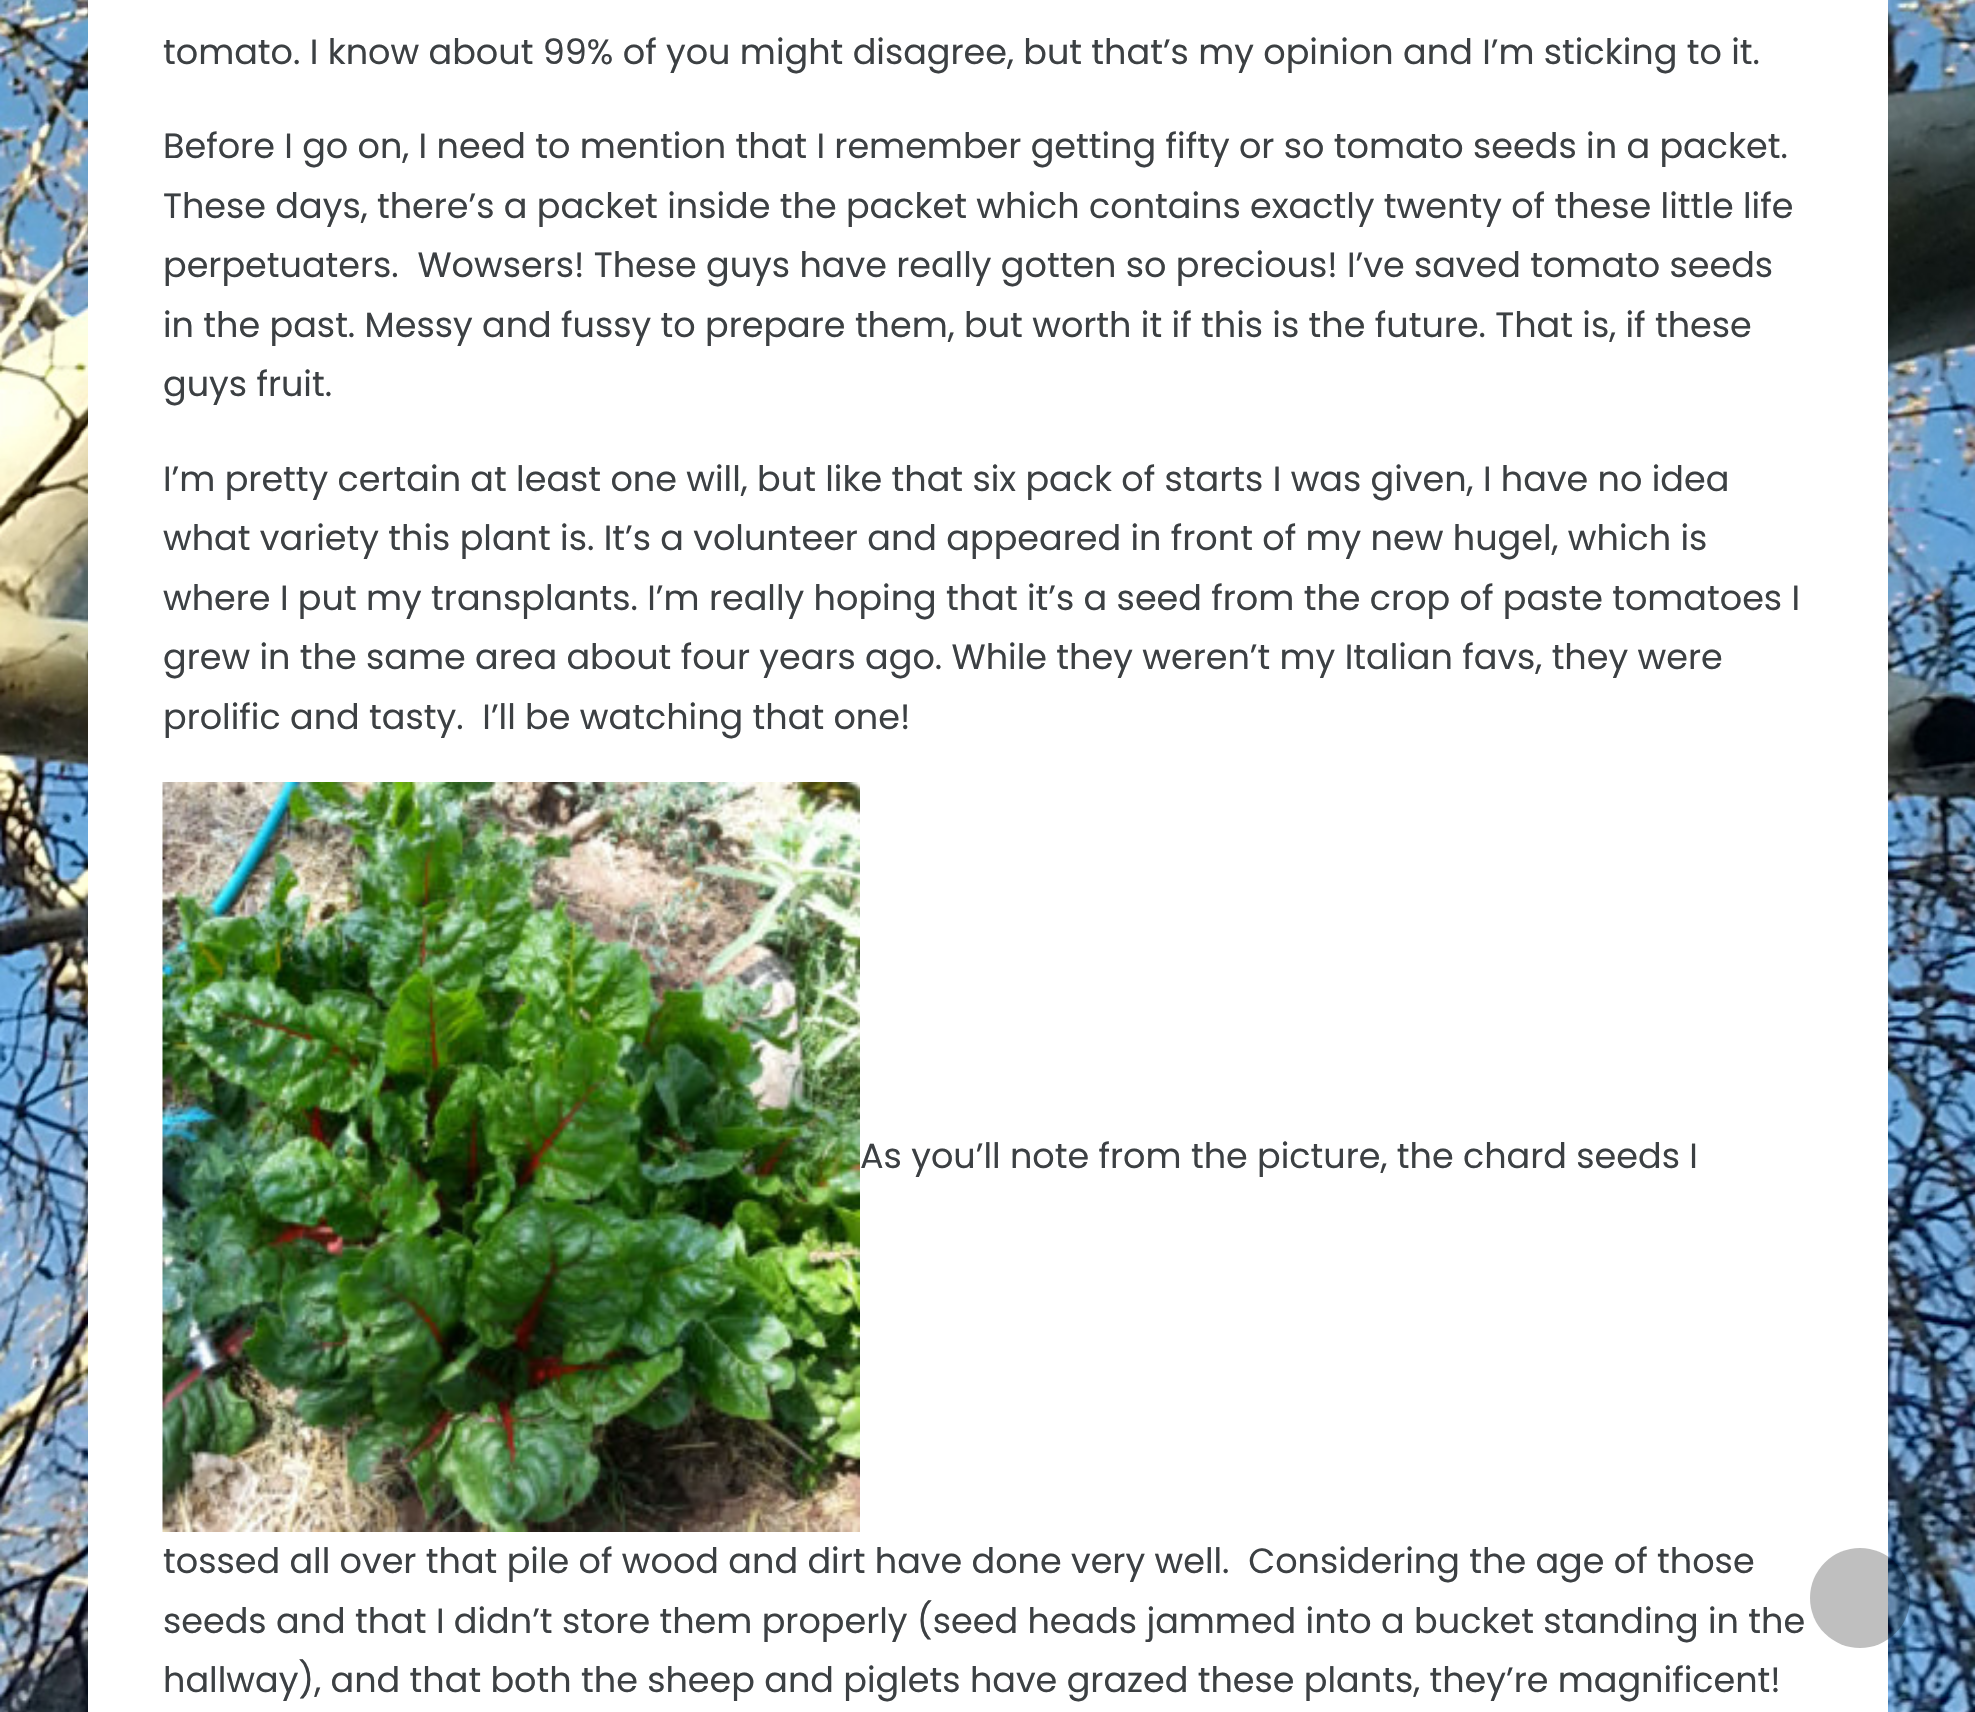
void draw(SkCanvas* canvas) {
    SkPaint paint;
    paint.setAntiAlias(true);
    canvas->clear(0xFFFFFFFF);
    canvas->drawImageRect(SkImages::DeferredFromEncodedData(SkData::MakeFromFileName("img1.png")), SkRect::MakeXYWH(0, 0, 1975, 1712), SkSamplingOptions());
    paint.setColor(0xFFFFFFFF);
    canvas->drawRect(SkRect::MakeXYWH(88, 0, 1800, 1712), paint);
    SkFont font1(fontMgr->matchFamilyStyle("Poppins", SkFontStyle::Normal()), 35);
    font1.setSubpixel(true);
    paint.setColor(0xFF3C4043);
    canvas->drawString("tomato. I know about 99% of you might disagree, but that’s my opinion and I’m sticking to it.", 163, 64, font1, paint);
    canvas->drawString("Before I go on, I need to mention that I remember getting fifty or so tomato seeds in a packet.", 163, 158, font1, paint);
    canvas->drawString("These days, there’s a packet inside the packet which contains exactly twenty of these little life", 163, 218, font1, paint);
    canvas->drawString("perpetuaters.  Wowsers! These guys have really gotten so precious! I’ve saved tomato seeds", 163, 277, font1, paint);
    canvas->drawString("in the past. Messy and fussy to prepare them, but worth it if this is the future. That is, if these", 163, 337, font1, paint);
    canvas->drawString("guys fruit.", 163, 396, font1, paint);
    canvas->drawString("I’m pretty certain at least one will, but like that six pack of starts I was given, I have no idea", 163, 491, font1, paint);
    canvas->drawString("what variety this plant is. It’s a volunteer and appeared in front of my new hugel, which is", 163, 550, font1, paint);
    canvas->drawString("where I put my transplants. I’m really hoping that it’s a seed from the crop of paste tomatoes I", 163, 610, font1, paint);
    canvas->drawString("grew in the same area about four years ago. While they weren’t my Italian favs, they were", 163, 669, font1, paint);
    canvas->drawString("prolific and tasty.  I’ll be watching that one!", 163, 729, font1, paint);
    canvas->drawImageRect(SkImages::DeferredFromEncodedData(SkData::MakeFromFileName("img2.png")), SkRect::MakeXYWH(162, 782, 698, 750), SkSamplingOptions());
    canvas->drawString("As you’ll note from the picture, the chard seeds I", 860, 1168, font1, paint);
    canvas->drawString("tossed all over that pile of wood and dirt have done very well.  Considering the age of those", 163, 1573, font1, paint);
    canvas->drawString("seeds and that I didn’t store them properly (seed heads jammed into a bucket standing in the", 163, 1633, font1, paint);
    canvas->drawString("hallway), and that both the sheep and piglets have grazed these plants, they’re magnificent!", 163, 1692, font1, paint);
    paint.setColor(0x40000000);
    canvas->drawCircle(1860, 1598, 50, paint);
}
